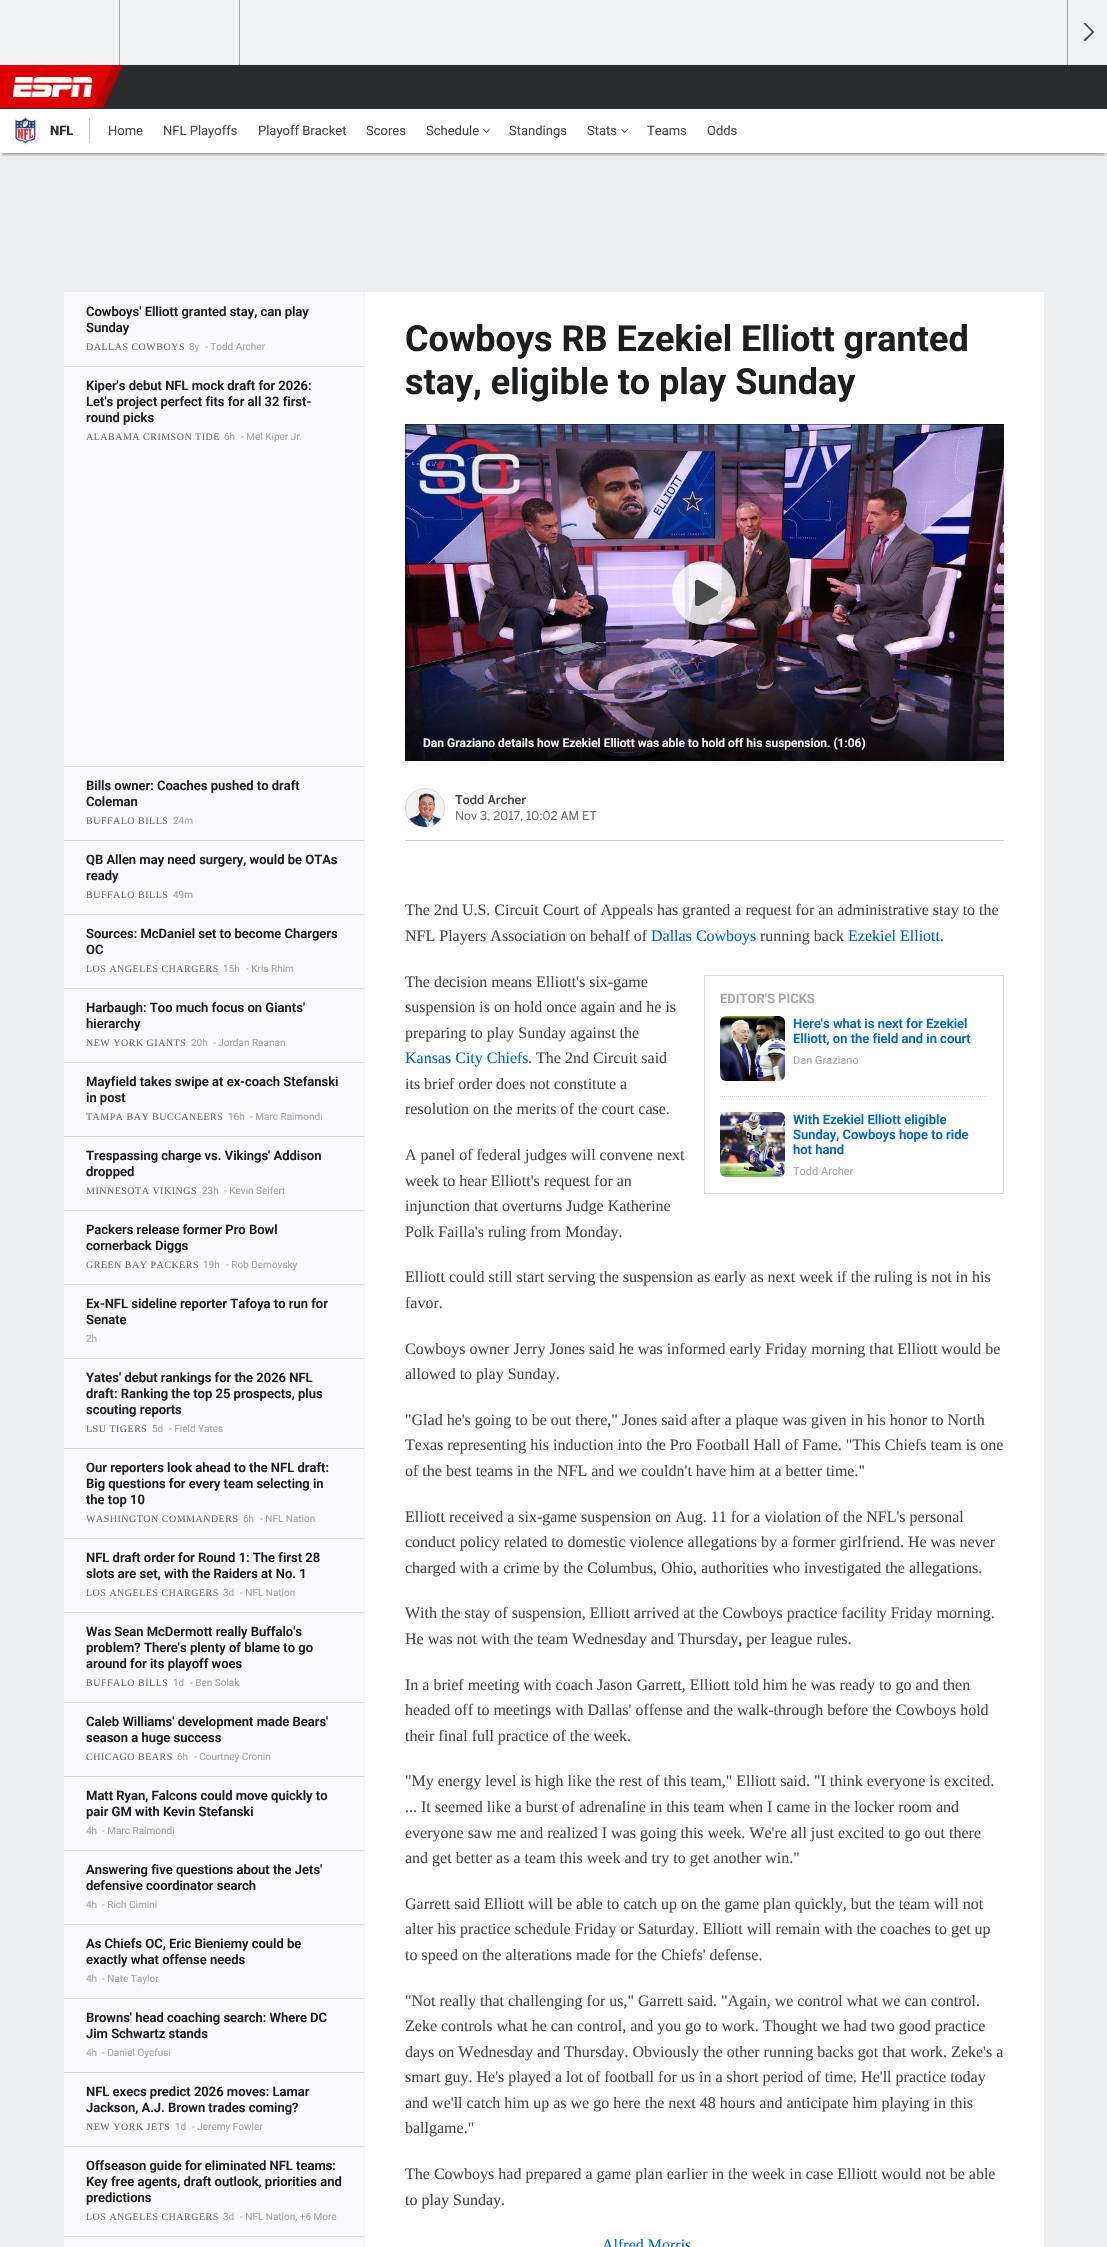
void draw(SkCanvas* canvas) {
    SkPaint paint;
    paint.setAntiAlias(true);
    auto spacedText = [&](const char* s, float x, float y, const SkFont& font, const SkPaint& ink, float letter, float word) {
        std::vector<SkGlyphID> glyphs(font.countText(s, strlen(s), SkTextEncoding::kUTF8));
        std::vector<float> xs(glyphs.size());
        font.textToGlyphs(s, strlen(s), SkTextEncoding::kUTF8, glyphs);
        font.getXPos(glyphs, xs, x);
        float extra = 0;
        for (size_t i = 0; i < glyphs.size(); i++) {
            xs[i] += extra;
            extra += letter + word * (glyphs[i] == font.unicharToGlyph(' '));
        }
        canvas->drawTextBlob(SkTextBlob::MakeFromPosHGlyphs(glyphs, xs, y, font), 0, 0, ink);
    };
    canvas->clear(0xFFEDEEF0);
    paint.setColor(0xFFF1F2F3);
    canvas->drawRect(SkRect::MakeXYWH(0, 0, 1107, 65), paint);
    paint.setColor(0xFFA5A6A7);
    canvas->drawRect(SkRect::MakeXYWH(119, 0, 1, 65), paint);
    canvas->drawRect(SkRect::MakeXYWH(239, 0, 1, 65), paint);
    canvas->drawRect(SkRect::MakeXYWH(1067, 0, 1, 65), paint);
    paint.setColor(0xFF48494A);
    canvas->drawPath(SkPathBuilder().moveTo(1085, 22.5f).lineTo(1083.5f, 23.5f).lineTo(1092, 32).lineTo(1083.5f, 40).lineTo(1085, 41.5f).lineTo(1094.5f, 32).close().detach(), paint);
    paint.setColor(0xFF2B2C2D);
    canvas->drawRect(SkRect::MakeXYWH(0, 65, 1107, 44), paint);
    paint.setColor(0xFFB40000);
    canvas->drawPath(SkPathBuilder().moveTo(0, 65).lineTo(123, 65).lineTo(103, 108).lineTo(-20, 108).close().detach(), paint);
    paint.setColor(0xFFDD0000);
    canvas->drawPath(SkPathBuilder().moveTo(-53, 65).lineTo(113, 65).lineTo(93, 108).lineTo(-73, 108).close().detach(), paint);
    canvas->drawImageRect(SkImages::DeferredFromEncodedData(SkData::MakeFromFileName("img1.png")), SkRect::MakeXYWH(13, 77, 80, 20), SkSamplingOptions());
    paint.setColor(0x4D000000);
    paint.setMaskFilter(SkMaskFilter::MakeBlur(kNormal_SkBlurStyle, 1));
    canvas->drawRect(SkRect::MakeXYWH(2, 115, 1103, 40), paint);
    paint.setMaskFilter(nullptr);
    paint.setColor(0xFFFFFFFF);
    canvas->drawRoundRect(SkRect::MakeXYWH(0, 109, 1107, 44), 1, 1, paint);
    canvas->drawImageRect(SkImages::DeferredFromEncodedData(SkData::MakeFromFileName("img2.png")), SkRect::MakeXYWH(14, 116, 22, 29), SkSamplingOptions());
    SkFont font1(fontMgr->matchFamilyStyle("Roboto", SkFontStyle(800, SkFontStyle::kNormal_Width, SkFontStyle::kUpright_Slant)), 13);
    font1.setSubpixel(true);
    paint.setColor(0xFF2B2C2D);
    canvas->drawString("NFL", 50, 135, font1, paint);
    paint.setColor(0xFFCBCCCE);
    canvas->drawRect(SkRect::MakeXYWH(89, 118, 1, 25), paint);
    SkFont font2(fontMgr->matchFamilyStyle("Roboto", SkFontStyle::Normal()), 13);
    font2.setSubpixel(true);
    paint.setColor(0xFF48494A);
    canvas->drawString("Home", 108, 135, font2, paint);
    canvas->drawString("NFL Playoffs", 163, 135, font2, paint);
    canvas->drawString("Playoff Bracket", 258, 135, font2, paint);
    canvas->drawString("Scores", 366, 135, font2, paint);
    canvas->drawString("Schedule", 426, 135, font2, paint);
    canvas->drawImageRect(SkImages::DeferredFromEncodedData(SkData::MakeFromFileName("img3.png")), SkRect::MakeXYWH(483, 129, 7, 5), SkSamplingOptions());
    canvas->drawString("Standings", 509, 135, font2, paint);
    canvas->drawString("Stats", 587, 135, font2, paint);
    canvas->drawImageRect(SkImages::DeferredFromEncodedData(SkData::MakeFromFileName("img3.png")), SkRect::MakeXYWH(621, 129, 7, 5), SkSamplingOptions());
    canvas->drawString("Teams", 647, 135, font2, paint);
    canvas->drawString("Odds", 707, 135, font2, paint);
    paint.setColor(0xFFF9F9FB);
    canvas->drawRect(SkRect::MakeXYWH(64, 292, 300, 1955), paint);
    SkFont font3(fontMgr->matchFamilyStyle("Roboto", SkFontStyle(600, SkFontStyle::kNormal_Width, SkFontStyle::kUpright_Slant)), 13);
    font3.setSubpixel(true);
    paint.setColor(0xFF1D1E1F);
    canvas->drawString("Cowboys' Elliott granted stay, can play", 86, 316, font3, paint);
    canvas->drawString("Sunday", 86, 332, font3, paint);
    SkFont font4(fontMgr->matchFamilyStyle("Liberation Serif", SkFontStyle::Normal()), 10);
    font4.setSubpixel(true);
    paint.setColor(0xFF6C6D6F);
    spacedText("DALLAS COWBOYS", 86, 350, font4, paint, 0.5f, 0);
    SkFont font5(fontMgr->matchFamilyStyle("Roboto", SkFontStyle::Normal()), 10);
    font5.setSubpixel(true);
    paint.setColor(0xFFA5A6A7);
    canvas->drawString("8y", 189, 350, font5, paint);
    canvas->drawString("- Todd Archer", 205, 350, font5, paint);
    paint.setColor(0xFFDCDDDF);
    canvas->drawRect(SkRect::MakeXYWH(64, 366, 300, 1), paint);
    paint.setColor(0xFF1D1E1F);
    canvas->drawString("Kiper's debut NFL mock draft for 2026:", 86, 390, font3, paint);
    canvas->drawString("Let's project perfect fits for all 32 first-", 86, 406, font3, paint);
    canvas->drawString("round picks", 86, 422, font3, paint);
    paint.setColor(0xFF6C6D6F);
    spacedText("ALABAMA CRIMSON TIDE", 86, 440, font4, paint, 0.5f, 0);
    paint.setColor(0xFFA5A6A7);
    canvas->drawString("6h", 224, 440, font5, paint);
    canvas->drawString("- Mel Kiper Jr.", 241, 440, font5, paint);
    paint.setColor(0xFFDCDDDF);
    canvas->drawRect(SkRect::MakeXYWH(64, 766, 300, 1), paint);
    paint.setColor(0xFF1D1E1F);
    canvas->drawString("Bills owner: Coaches pushed to draft", 86, 790, font3, paint);
    canvas->drawString("Coleman", 86, 806, font3, paint);
    paint.setColor(0xFF6C6D6F);
    spacedText("BUFFALO BILLS", 86, 824, font4, paint, 0.5f, 0);
    paint.setColor(0xFFA5A6A7);
    canvas->drawString("24m", 173, 824, font5, paint);
    paint.setColor(0xFFDCDDDF);
    canvas->drawRect(SkRect::MakeXYWH(64, 840, 300, 1), paint);
    paint.setColor(0xFF1D1E1F);
    canvas->drawString("QB Allen may need surgery, would be OTAs", 86, 864, font3, paint);
    canvas->drawString("ready", 86, 880, font3, paint);
    paint.setColor(0xFF6C6D6F);
    spacedText("BUFFALO BILLS", 86, 898, font4, paint, 0.5f, 0);
    paint.setColor(0xFFA5A6A7);
    canvas->drawString("49m", 173, 898, font5, paint);
    paint.setColor(0xFFDCDDDF);
    canvas->drawRect(SkRect::MakeXYWH(64, 914, 300, 1), paint);
    paint.setColor(0xFF1D1E1F);
    canvas->drawString("Sources: McDaniel set to become Chargers", 86, 938, font3, paint);
    canvas->drawString("OC", 86, 954, font3, paint);
    paint.setColor(0xFF6C6D6F);
    spacedText("LOS ANGELES CHARGERS", 86, 972, font4, paint, 0.5f, 0);
    paint.setColor(0xFFA5A6A7);
    canvas->drawString("15h", 223, 972, font5, paint);
    canvas->drawString("- Kris Rhim", 246, 972, font5, paint);
    paint.setColor(0xFFDCDDDF);
    canvas->drawRect(SkRect::MakeXYWH(64, 988, 300, 1), paint);
    paint.setColor(0xFF1D1E1F);
    canvas->drawString("Harbaugh: Too much focus on Giants'", 86, 1012, font3, paint);
    canvas->drawString("hierarchy", 86, 1028, font3, paint);
    paint.setColor(0xFF6C6D6F);
    spacedText("NEW YORK GIANTS", 86, 1046, font4, paint, 0.5f, 0);
    paint.setColor(0xFFA5A6A7);
    canvas->drawString("20h", 191, 1046, font5, paint);
    canvas->drawString("- Jordan Raanan", 213, 1046, font5, paint);
    paint.setColor(0xFFDCDDDF);
    canvas->drawRect(SkRect::MakeXYWH(64, 1062, 300, 1), paint);
    paint.setColor(0xFF1D1E1F);
    canvas->drawString("Mayfield takes swipe at ex-coach Stefanski", 86, 1086, font3, paint);
    canvas->drawString("in post", 86, 1102, font3, paint);
    paint.setColor(0xFF6C6D6F);
    spacedText("TAMPA BAY BUCCANEERS", 86, 1120, font4, paint, 0.5f, 0);
    paint.setColor(0xFFA5A6A7);
    canvas->drawString("16h", 228, 1120, font5, paint);
    canvas->drawString("- Marc Raimondi", 250, 1120, font5, paint);
    paint.setColor(0xFFDCDDDF);
    canvas->drawRect(SkRect::MakeXYWH(64, 1136, 300, 1), paint);
    paint.setColor(0xFF1D1E1F);
    canvas->drawString("Trespassing charge vs. Vikings' Addison", 86, 1160, font3, paint);
    canvas->drawString("dropped", 86, 1176, font3, paint);
    paint.setColor(0xFF6C6D6F);
    spacedText("MINNESOTA VIKINGS", 86, 1194, font4, paint, 0.5f, 0);
    paint.setColor(0xFFA5A6A7);
    canvas->drawString("23h", 202, 1194, font5, paint);
    canvas->drawString("- Kevin Seifert", 224, 1194, font5, paint);
    paint.setColor(0xFFDCDDDF);
    canvas->drawRect(SkRect::MakeXYWH(64, 1210, 300, 1), paint);
    paint.setColor(0xFF1D1E1F);
    canvas->drawString("Packers release former Pro Bowl", 86, 1234, font3, paint);
    canvas->drawString("cornerback Diggs", 86, 1250, font3, paint);
    paint.setColor(0xFF6C6D6F);
    spacedText("GREEN BAY PACKERS", 86, 1268, font4, paint, 0.5f, 0);
    paint.setColor(0xFFA5A6A7);
    canvas->drawString("19h", 203, 1268, font5, paint);
    canvas->drawString("- Rob Demovsky", 226, 1268, font5, paint);
    paint.setColor(0xFFDCDDDF);
    canvas->drawRect(SkRect::MakeXYWH(64, 1284, 300, 1), paint);
    paint.setColor(0xFF1D1E1F);
    canvas->drawString("Ex-NFL sideline reporter Tafoya to run for", 86, 1308, font3, paint);
    canvas->drawString("Senate", 86, 1324, font3, paint);
    paint.setColor(0xFFA5A6A7);
    canvas->drawString("2h", 86, 1342, font5, paint);
    paint.setColor(0xFFDCDDDF);
    canvas->drawRect(SkRect::MakeXYWH(64, 1358, 300, 1), paint);
    paint.setColor(0xFF1D1E1F);
    canvas->drawString("Yates' debut rankings for the 2026 NFL", 86, 1382, font3, paint);
    canvas->drawString("draft: Ranking the top 25 prospects, plus", 86, 1398, font3, paint);
    canvas->drawString("scouting reports", 86, 1414, font3, paint);
    paint.setColor(0xFF6C6D6F);
    spacedText("LSU TIGERS", 86, 1432, font4, paint, 0.5f, 0);
    paint.setColor(0xFFA5A6A7);
    canvas->drawString("5d", 152, 1432, font5, paint);
    canvas->drawString("- Field Yates", 169, 1432, font5, paint);
    paint.setColor(0xFFDCDDDF);
    canvas->drawRect(SkRect::MakeXYWH(64, 1448, 300, 1), paint);
    paint.setColor(0xFF1D1E1F);
    canvas->drawString("Our reporters look ahead to the NFL draft:", 86, 1472, font3, paint);
    canvas->drawString("Big questions for every team selecting in", 86, 1488, font3, paint);
    canvas->drawString("the top 10", 86, 1504, font3, paint);
    paint.setColor(0xFF6C6D6F);
    spacedText("WASHINGTON COMMANDERS", 86, 1522, font4, paint, 0.5f, 0);
    paint.setColor(0xFFA5A6A7);
    canvas->drawString("6h", 243, 1522, font5, paint);
    canvas->drawString("- NFL Nation", 260, 1522, font5, paint);
    paint.setColor(0xFFDCDDDF);
    canvas->drawRect(SkRect::MakeXYWH(64, 1538, 300, 1), paint);
    paint.setColor(0xFF1D1E1F);
    canvas->drawString("NFL draft order for Round 1: The first 28", 86, 1562, font3, paint);
    canvas->drawString("slots are set, with the Raiders at No. 1", 86, 1578, font3, paint);
    paint.setColor(0xFF6C6D6F);
    spacedText("LOS ANGELES CHARGERS", 86, 1596, font4, paint, 0.5f, 0);
    paint.setColor(0xFFA5A6A7);
    canvas->drawString("3d", 223, 1596, font5, paint);
    canvas->drawString("- NFL Nation", 240, 1596, font5, paint);
    paint.setColor(0xFFDCDDDF);
    canvas->drawRect(SkRect::MakeXYWH(64, 1612, 300, 1), paint);
    paint.setColor(0xFF1D1E1F);
    canvas->drawString("Was Sean McDermott really Buffalo's", 86, 1636, font3, paint);
    canvas->drawString("problem? There's plenty of blame to go", 86, 1652, font3, paint);
    canvas->drawString("around for its playoff woes", 86, 1668, font3, paint);
    paint.setColor(0xFF6C6D6F);
    spacedText("BUFFALO BILLS", 86, 1686, font4, paint, 0.5f, 0);
    paint.setColor(0xFFA5A6A7);
    canvas->drawString("1d", 173, 1686, font5, paint);
    canvas->drawString("- Ben Solak", 190, 1686, font5, paint);
    paint.setColor(0xFFDCDDDF);
    canvas->drawRect(SkRect::MakeXYWH(64, 1702, 300, 1), paint);
    paint.setColor(0xFF1D1E1F);
    canvas->drawString("Caleb Williams' development made Bears'", 86, 1726, font3, paint);
    canvas->drawString("season a huge success", 86, 1742, font3, paint);
    paint.setColor(0xFF6C6D6F);
    spacedText("CHICAGO BEARS", 86, 1760, font4, paint, 0.5f, 0);
    paint.setColor(0xFFA5A6A7);
    canvas->drawString("6h", 177, 1760, font5, paint);
    canvas->drawString("- Courtney Cronin", 194, 1760, font5, paint);
    paint.setColor(0xFFDCDDDF);
    canvas->drawRect(SkRect::MakeXYWH(64, 1776, 300, 1), paint);
    paint.setColor(0xFF1D1E1F);
    canvas->drawString("Matt Ryan, Falcons could move quickly to", 86, 1800, font3, paint);
    canvas->drawString("pair GM with Kevin Stefanski", 86, 1816, font3, paint);
    paint.setColor(0xFFA5A6A7);
    canvas->drawString("4h", 86, 1834, font5, paint);
    canvas->drawString("- Marc Raimondi", 102, 1834, font5, paint);
    paint.setColor(0xFFDCDDDF);
    canvas->drawRect(SkRect::MakeXYWH(64, 1850, 300, 1), paint);
    paint.setColor(0xFF1D1E1F);
    canvas->drawString("Answering five questions about the Jets'", 86, 1874, font3, paint);
    canvas->drawString("defensive coordinator search", 86, 1890, font3, paint);
    paint.setColor(0xFFA5A6A7);
    canvas->drawString("4h", 86, 1908, font5, paint);
    canvas->drawString("- Rich Cimini", 102, 1908, font5, paint);
    paint.setColor(0xFFDCDDDF);
    canvas->drawRect(SkRect::MakeXYWH(64, 1924, 300, 1), paint);
    paint.setColor(0xFF1D1E1F);
    canvas->drawString("As Chiefs OC, Eric Bieniemy could be", 86, 1948, font3, paint);
    canvas->drawString("exactly what offense needs", 86, 1964, font3, paint);
    paint.setColor(0xFFA5A6A7);
    canvas->drawString("4h", 86, 1982, font5, paint);
    canvas->drawString("- Nate Taylor", 102, 1982, font5, paint);
    paint.setColor(0xFFDCDDDF);
    canvas->drawRect(SkRect::MakeXYWH(64, 1998, 300, 1), paint);
    paint.setColor(0xFF1D1E1F);
    canvas->drawString("Browns' head coaching search: Where DC", 86, 2022, font3, paint);
    canvas->drawString("Jim Schwartz stands", 86, 2038, font3, paint);
    paint.setColor(0xFFA5A6A7);
    canvas->drawString("4h", 86, 2056, font5, paint);
    canvas->drawString("- Daniel Oyefusi", 102, 2056, font5, paint);
    paint.setColor(0xFFDCDDDF);
    canvas->drawRect(SkRect::MakeXYWH(64, 2072, 300, 1), paint);
    paint.setColor(0xFF1D1E1F);
    canvas->drawString("NFL execs predict 2026 moves: Lamar", 86, 2096, font3, paint);
    canvas->drawString("Jackson, A.J. Brown trades coming?", 86, 2112, font3, paint);
    paint.setColor(0xFF6C6D6F);
    spacedText("NEW YORK JETS", 86, 2130, font4, paint, 0.5f, 0);
    paint.setColor(0xFFA5A6A7);
    canvas->drawString("1d", 175, 2130, font5, paint);
    canvas->drawString("- Jeremy Fowler", 192, 2130, font5, paint);
    paint.setColor(0xFFDCDDDF);
    canvas->drawRect(SkRect::MakeXYWH(64, 2146, 300, 1), paint);
    paint.setColor(0xFF1D1E1F);
    canvas->drawString("Offseason guide for eliminated NFL teams:", 86, 2170, font3, paint);
    canvas->drawString("Key free agents, draft outlook, priorities and", 86, 2186, font3, paint);
    canvas->drawString("predictions", 86, 2202, font3, paint);
    paint.setColor(0xFF6C6D6F);
    spacedText("LOS ANGELES CHARGERS", 86, 2220, font4, paint, 0.5f, 0);
    paint.setColor(0xFFA5A6A7);
    canvas->drawString("3d", 223, 2220, font5, paint);
    canvas->drawString("- NFL Nation, +6 More", 240, 2220, font5, paint);
    paint.setColor(0xFFDCDDDF);
    canvas->drawRect(SkRect::MakeXYWH(64, 2236, 300, 1), paint);
    paint.setColor(0xFFF1F2F3);
    canvas->drawRect(SkRect::MakeXYWH(364, 292, 1, 1955), paint);
    paint.setColor(0xFFFFFFFF);
    canvas->drawRect(SkRect::MakeXYWH(365, 292, 679, 1955), paint);
    SkFont font6(fontMgr->matchFamilyStyle("Roboto", SkFontStyle::Bold()), 36);
    font6.setSubpixel(true);
    paint.setColor(0xFF1D1E1F);
    canvas->drawString("Cowboys RB Ezekiel Elliott granted", 405, 351, font6, paint);
    canvas->drawString("stay, eligible to play Sunday", 405, 394, font6, paint);
    canvas->drawImageRect(SkImages::DeferredFromEncodedData(SkData::MakeFromFileName("img4.png")), SkRect::MakeXYWH(405, 424, 599, 337), SkSamplingOptions());
    paint.setColor(0xCCFFFFFF);
    canvas->drawCircle(704, 593, 32, paint);
    canvas->drawImageRect(SkImages::DeferredFromEncodedData(SkData::MakeFromFileName("img5.png")), SkRect::MakeXYWH(695, 580, 23, 26), SkSamplingOptions());
    SkFont font7(fontMgr->matchFamilyStyle("Roboto", SkFontStyle(600, SkFontStyle::kNormal_Width, SkFontStyle::kUpright_Slant)), 12);
    font7.setSubpixel(true);
    paint.setColor(0xFFF9F9FB);
    canvas->drawString("Dan Graziano details how Ezekiel Elliott was able to hold off his suspension. (1:06)", 423, 747, font7, paint);
    paint.setColor(0xFFCECFCF);
    canvas->drawRect(SkRect::MakeXYWH(405, 840, 599, 1), paint);
    paint.setColor(0xFFF1F2F3);
    canvas->drawCircle(425, 808, 19.5f, paint);
    paint.setStyle(SkPaint::kStroke_Style);
    paint.setStrokeWidth(1);
    paint.setColor(0xFFDCDDDF);
    canvas->drawCircle(425, 808, 19.5f, paint);
    canvas->drawImageRect(SkImages::DeferredFromEncodedData(SkData::MakeFromFileName("img6.png")), SkRect::MakeXYWH(409, 793, 32, 34), SkSamplingOptions());
    SkFont font8(fontMgr->matchFamilyStyle("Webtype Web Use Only", SkFontStyle(500, SkFontStyle::kNormal_Width, SkFontStyle::kUpright_Slant)), 12);
    font8.setSubpixel(true);
    paint.setStyle(SkPaint::kFill_Style);
    paint.setColor(0xFF48494A);
    canvas->drawString("Todd Archer", 455, 804, font8, paint);
    SkFont font9(fontMgr->matchFamilyStyle("Webtype Web Use Only", SkFontStyle::Normal()), 12);
    font9.setSubpixel(true);
    paint.setColor(0xFF6C6D6F);
    canvas->drawString("Nov 3, 2017, 10:02 AM ET", 455, 820, font9, paint);
    SkFont font10(fontMgr->matchFamilyStyle("Liberation Serif", SkFontStyle::Normal()), 16);
    font10.setSubpixel(true);
    paint.setColor(0xFF48494A);
    canvas->drawString("The 2nd U.S. Circuit Court of Appeals has granted a request for an administrative stay to the", 405, 915, font10, paint);
    canvas->drawString("NFL Players Association on behalf of", 405, 941, font10, paint);
    paint.setColor(0xFF0066CC);
    canvas->drawString("Dallas Cowboys", 651, 941, font10, paint);
    paint.setColor(0xFF48494A);
    canvas->drawString("running back", 760, 941, font10, paint);
    paint.setColor(0xFF0066CC);
    canvas->drawString("Ezekiel Elliott", 848, 941, font10, paint);
    paint.setColor(0xFF48494A);
    canvas->drawString(".", 940, 941, font10, paint);
    canvas->drawString("The decision means Elliott's six-game", 405, 987, font10, paint);
    canvas->drawString("suspension is on hold once again and he is", 405, 1012, font10, paint);
    canvas->drawString("preparing to play Sunday against the", 405, 1038, font10, paint);
    paint.setColor(0xFF0066CC);
    canvas->drawString("Kansas City Chiefs", 405, 1063, font10, paint);
    paint.setColor(0xFF48494A);
    canvas->drawString(". The 2nd Circuit said", 528, 1063, font10, paint);
    canvas->drawString("its brief order does not constitute a", 405, 1089, font10, paint);
    canvas->drawString("resolution on the merits of the court case.", 405, 1114, font10, paint);
    paint.setStyle(SkPaint::kStroke_Style);
    paint.setColor(0xFFDCDDDF);
    canvas->drawRect(SkRect::MakeXYWH(704.5f, 975.5f, 299, 218), paint);
    paint.setStyle(SkPaint::kFill_Style);
    paint.setColor(0xFFA5A6A7);
    canvas->drawString("EDITOR'S PICKS", 720, 1003, font3, paint);
    canvas->drawImageRect(SkImages::DeferredFromEncodedData(SkData::MakeFromFileName("img7.png")), SkRect::MakeXYWH(720, 1016, 65, 65), SkSamplingOptions());
    paint.setColor(0xFF0066CC);
    canvas->drawString("Here's what is next for Ezekiel", 793, 1028, font3, paint);
    canvas->drawString("Elliott, on the field and in court", 793, 1043, font3, paint);
    SkFont font11(fontMgr->matchFamilyStyle("Roboto", SkFontStyle::Normal()), 11);
    font11.setSubpixel(true);
    paint.setColor(0xFFA5A6A7);
    canvas->drawString("Dan Graziano", 793, 1064, font11, paint);
    paint.setStyle(SkPaint::kStroke_Style);
    paint.setColor(0xFFDCDDDF);
    paint.setPathEffect(SkDashPathEffect::Make({{1, 1}}, 0));
    canvas->drawPath(SkPathBuilder().moveTo(720, 1096.5f).lineTo(988, 1096.5f).detach(), paint);
    paint.setPathEffect(nullptr);
    canvas->drawImageRect(SkImages::DeferredFromEncodedData(SkData::MakeFromFileName("img8.png")), SkRect::MakeXYWH(720, 1112, 65, 65), SkSamplingOptions());
    paint.setStyle(SkPaint::kFill_Style);
    paint.setColor(0xFF0066CC);
    canvas->drawString("With Ezekiel Elliott eligible", 793, 1124, font3, paint);
    canvas->drawString("Sunday, Cowboys hope to ride", 793, 1139, font3, paint);
    canvas->drawString("hot hand", 793, 1154, font3, paint);
    paint.setColor(0xFFA5A6A7);
    canvas->drawString("Todd Archer", 793, 1175, font11, paint);
    paint.setColor(0xFF48494A);
    canvas->drawString("A panel of federal judges will convene next", 405, 1160, font10, paint);
    canvas->drawString("week to hear Elliott's request for an", 405, 1186, font10, paint);
    canvas->drawString("injunction that overturns Judge Katherine", 405, 1211, font10, paint);
    canvas->drawString("Polk Failla's ruling from Monday.", 405, 1237, font10, paint);
    canvas->drawString("Elliott could still start serving the suspension as early as next week if the ruling is not in his", 405, 1282, font10, paint);
    canvas->drawString("favor.", 405, 1308, font10, paint);
    canvas->drawString("Cowboys owner Jerry Jones said he was informed early Friday morning that Elliott would be", 405, 1354, font10, paint);
    canvas->drawString("allowed to play Sunday.", 405, 1379, font10, paint);
    canvas->drawString("\"Glad he's going to be out there,\" Jones said after a plaque was given in his honor to North", 405, 1425, font10, paint);
    canvas->drawString("Texas representing his induction into the Pro Football Hall of Fame. \"This Chiefs team is one", 405, 1450, font10, paint);
    canvas->drawString("of the best teams in the NFL and we couldn't have him at a better time.\"", 405, 1476, font10, paint);
    canvas->drawString("Elliott received a six-game suspension on Aug. 11 for a violation of the NFL's personal", 405, 1522, font10, paint);
    canvas->drawString("conduct policy related to domestic violence allegations by a former girlfriend. He was never", 405, 1547, font10, paint);
    canvas->drawString("charged with a crime by the Columbus, Ohio, authorities who investigated the allegations.", 405, 1573, font10, paint);
    canvas->drawString("With the stay of suspension, Elliott arrived at the Cowboys practice facility Friday morning.", 405, 1618, font10, paint);
    canvas->drawString("He was not with the team Wednesday and Thursday, per league rules.", 405, 1644, font10, paint);
    canvas->drawString("In a brief meeting with coach Jason Garrett, Elliott told him he was ready to go and then", 405, 1690, font10, paint);
    canvas->drawString("headed off to meetings with Dallas' offense and the walk-through before the Cowboys hold", 405, 1715, font10, paint);
    canvas->drawString("their final full practice of the week.", 405, 1741, font10, paint);
    canvas->drawString("\"My energy level is high like the rest of this team,\" Elliott said. \"I think everyone is excited.", 405, 1786, font10, paint);
    canvas->drawString("... It seemed like a burst of adrenaline in this team when I came in the locker room and", 405, 1812, font10, paint);
    canvas->drawString("everyone saw me and realized I was going this week. We're all just excited to go out there", 405, 1838, font10, paint);
    canvas->drawString("and get better as a team this week and try to get another win.\"", 405, 1863, font10, paint);
    canvas->drawString("Garrett said Elliott will be able to catch up on the game plan quickly, but the team will not", 405, 1909, font10, paint);
    canvas->drawString("alter his practice schedule Friday or Saturday. Elliott will remain with the coaches to get up", 405, 1934, font10, paint);
    canvas->drawString("to speed on the alterations made for the Chiefs' defense.", 405, 1960, font10, paint);
    canvas->drawString("\"Not really that challenging for us,\" Garrett said. \"Again, we control what we can control.", 405, 2006, font10, paint);
    canvas->drawString("Zeke controls what he can control, and you go to work. Thought we had two good practice", 405, 2031, font10, paint);
    canvas->drawString("days on Wednesday and Thursday. Obviously the other running backs got that work. Zeke's a", 405, 2057, font10, paint);
    canvas->drawString("smart guy. He's played a lot of football for us in a short period of time. He'll practice today", 405, 2082, font10, paint);
    canvas->drawString("and we'll catch him up as we go here the next 48 hours and anticipate him playing in this", 405, 2108, font10, paint);
    canvas->drawString("ballgame.\"", 405, 2133, font10, paint);
    canvas->drawString("The Cowboys had prepared a game plan earlier in the week in case Elliott would not be able", 405, 2179, font10, paint);
    canvas->drawString("to play Sunday.", 405, 2205, font10, paint);
    paint.setColor(0xFF0066CC);
    canvas->drawString("Alfred Morris", 602, 2250, font10, paint);
}
